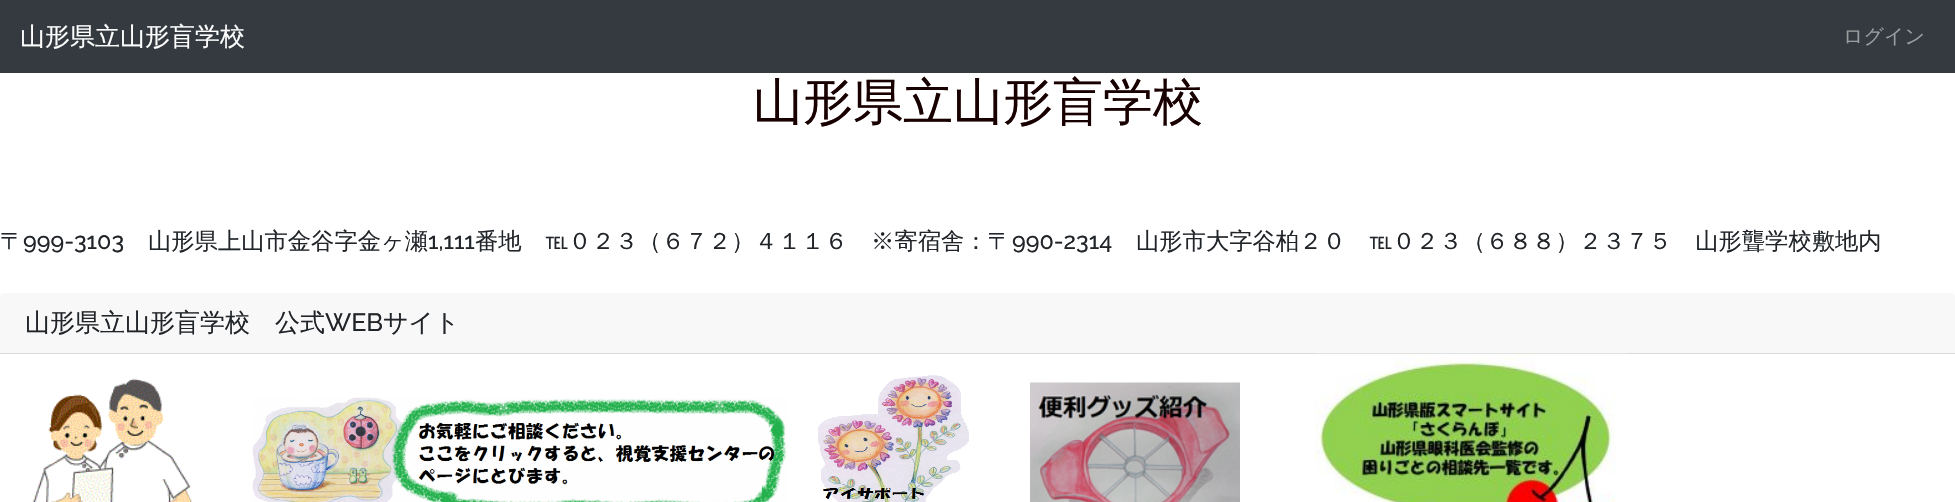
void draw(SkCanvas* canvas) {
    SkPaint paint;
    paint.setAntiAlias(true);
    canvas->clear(0xFFFFFFFF);
    paint.setColor(0xFF343A40);
    canvas->drawRect(SkRect::MakeXYWH(0, 0, 1955, 73), paint);
    SkFont font1(fontMgr->matchFamilyStyle("WenQuanYi Zen Hei", SkFontStyle(500, SkFontStyle::kNormal_Width, SkFontStyle::kUpright_Slant)), 25);
    font1.setSubpixel(true);
    paint.setColor(0xFFFFFFFF);
    canvas->drawString("山形県立山形盲学校", 20, 45, font1, paint);
    SkFont font2(fontMgr->matchFamilyStyle("WenQuanYi Zen Hei", SkFontStyle(500, SkFontStyle::kNormal_Width, SkFontStyle::kUpright_Slant)), 20);
    font2.setSubpixel(true);
    paint.setColor(0xFF9A9DA0);
    canvas->drawString("ログイン", 1843, 43, font2, paint);
    SkFont font3(fontMgr->matchFamilyStyle("WenQuanYi Zen Hei", SkFontStyle(500, SkFontStyle::kNormal_Width, SkFontStyle::kUpright_Slant)), 50);
    font3.setSubpixel(true);
    paint.setColor(0xFF190000);
    canvas->drawString("山形県立山形盲学校", 753, 119, font3, paint);
    SkFont font4(fontMgr->matchFamilyStyle("WenQuanYi Zen Hei", SkFontStyle(500, SkFontStyle::kNormal_Width, SkFontStyle::kUpright_Slant)), 23.3f);
    font4.setSubpixel(true);
    paint.setColor(0xFF212529);
    canvas->drawString("〒", 0, 249, font4, paint);
    SkFont font5(fontMgr->matchFamilyStyle("Raleway", SkFontStyle(500, SkFontStyle::kNormal_Width, SkFontStyle::kUpright_Slant)), 23.3f);
    font5.setSubpixel(true);
    canvas->drawString("999-3103", 23, 249, font5, paint);
    canvas->drawString("山形県上山市金谷字金ヶ瀬", 148, 249, font4, paint);
    canvas->drawString("1,111", 428, 249, font5, paint);
    canvas->drawString("番地　℡０２３（６７２）４１１６　※寄宿舎：〒", 475, 249, font4, paint);
    canvas->drawString("990-2314", 1012, 249, font5, paint);
    canvas->drawString("山形市大字谷柏２０　℡０２３（６８８）２３７５　山形聾学校敷地内", 1136, 249, font4, paint);
    paint.setColor(0xFFF8F8F8);
    canvas->drawPath(SkPathBuilder().moveTo(4, 293).lineTo(1951, 293).cubicTo(1953, 293, 1955, 295, 1955, 297).lineTo(1955, 354).lineTo(0, 354).lineTo(0, 297).cubicTo(0, 295, 2, 293, 4, 293).close().detach(), paint);
    paint.setColor(0xFFD9D9D9);
    canvas->drawRect(SkRect::MakeXYWH(0, 353, 1955, 1), paint);
    paint.setColor(0xFF212529);
    canvas->drawString("山形県立山形盲学校　公式", 25, 331, font1, paint);
    SkFont font6(fontMgr->matchFamilyStyle("Raleway", SkFontStyle(500, SkFontStyle::kNormal_Width, SkFontStyle::kUpright_Slant)), 25);
    font6.setSubpixel(true);
    canvas->drawString("WEB", 325, 331, font6, paint);
    canvas->drawString("サイト", 383, 331, font1, paint);
    canvas->drawImageRect(SkImages::DeferredFromEncodedData(SkData::MakeFromFileName("img1.png")), SkRect::MakeXYWH(32, 378, 160, 124), SkSamplingOptions());
    canvas->drawImageRect(SkImages::DeferredFromEncodedData(SkData::MakeFromFileName("img2.png")), SkRect::MakeXYWH(252, 397, 536, 105), SkSamplingOptions());
    canvas->drawImageRect(SkImages::DeferredFromEncodedData(SkData::MakeFromFileName("img3.png")), SkRect::MakeXYWH(818, 375, 151, 127), SkSamplingOptions());
    canvas->drawImageRect(SkImages::DeferredFromEncodedData(SkData::MakeFromFileName("img4.png")), SkRect::MakeXYWH(1030, 382, 210, 120), SkSamplingOptions());
    canvas->drawImageRect(SkImages::DeferredFromEncodedData(SkData::MakeFromFileName("img5.png")), SkRect::MakeXYWH(1315, 353, 313, 149), SkSamplingOptions());
}
